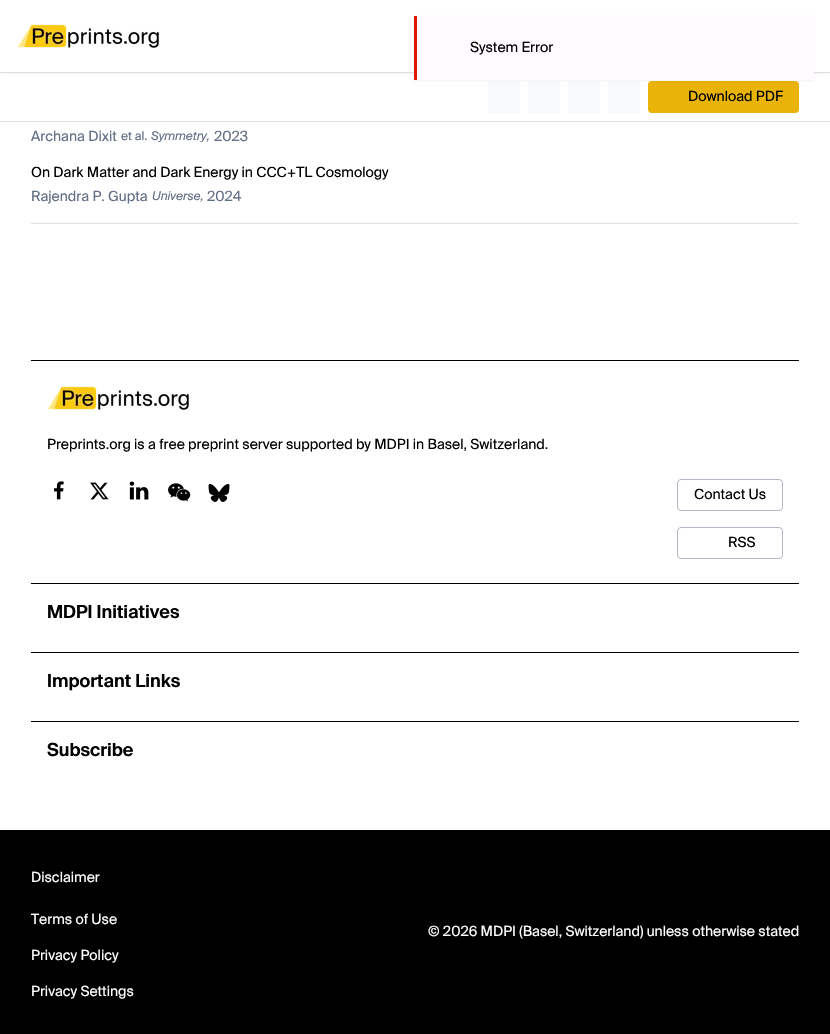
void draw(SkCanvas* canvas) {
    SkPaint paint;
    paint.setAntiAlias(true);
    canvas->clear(0xFFFFFFFF);
    paint.setColor(0x0D000000);
    paint.setMaskFilter(SkMaskFilter::MakeBlur(kNormal_SkBlurStyle, 1));
    canvas->drawRect(SkRect::MakeXYWH(0, 1, 830, 73), paint);
    paint.setMaskFilter(nullptr);
    paint.setColor(0xFFFFFFFF);
    canvas->drawRect(SkRect::MakeXYWH(0, 0, 830, 72), paint);
    paint.setColor(0xFFDCDFE4);
    canvas->drawRect(SkRect::MakeXYWH(0, 72, 830, 1), paint);
    paint.setColor(0xFFF8F9FD);
    canvas->drawRoundRect(SkRect::MakeXYWH(488, 81, 32, 32), 4, 4, paint);
    canvas->drawRoundRect(SkRect::MakeXYWH(528, 81, 32, 32), 4, 4, paint);
    canvas->drawRoundRect(SkRect::MakeXYWH(568, 81, 32, 32), 4, 4, paint);
    canvas->drawRoundRect(SkRect::MakeXYWH(608, 81, 32, 32), 4, 4, paint);
    paint.setColor(0xFFEAB308);
    canvas->drawRoundRect(SkRect::MakeXYWH(648, 81, 151, 32), 4, 4, paint);
    paint.setColor(0x0D000000);
    paint.setMaskFilter(SkMaskFilter::MakeBlur(kNormal_SkBlurStyle, 1));
    canvas->drawRect(SkRect::MakeXYWH(414, 17, 400, 64), paint);
    paint.setMaskFilter(nullptr);
    paint.setColor(0xFFFFFBFF);
    canvas->drawRect(SkRect::MakeXYWH(417, 16, 397, 64), paint);
    paint.setColor(0xFFE11900);
    canvas->drawRect(SkRect::MakeXYWH(414, 16, 3, 64), paint);
    SkFont font1(fontMgr->matchFamilyStyle("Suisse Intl", SkFontStyle::Normal()), 14);
    font1.setSubpixel(true);
    paint.setColor(0xFF000000);
    canvas->drawString("System Error", 470, 52, font1, paint);
    canvas->drawImageRect(SkImages::DeferredFromEncodedData(SkData::MakeFromFileName("img1.png")), SkRect::MakeXYWH(17, 24, 142, 24), SkSamplingOptions());
    paint.setColor(0xFFDCDFE4);
    canvas->drawRect(SkRect::MakeXYWH(0, 121, 830, 1), paint);
    paint.setColor(0xFF000000);
    canvas->drawString("Download PDF", 688, 101, font1, paint);
    paint.setColor(0xFFDCDFE4);
    canvas->drawRect(SkRect::MakeXYWH(31, 223, 768, 1), paint);
    paint.setColor(0xFF626F86);
    canvas->drawString("Archana Dixit", 31, 141, font1, paint);
    SkFont font2(fontMgr->matchFamilyStyle("Suisse Intl", SkFontStyle::Normal()), 12);
    font2.setSubpixel(true);
    canvas->drawString("et al.", 121, 140, font2, paint);
    SkFont font3(fontMgr->matchFamilyStyle("Suisse Intl", SkFontStyle::Italic()), 12);
    font3.setSubpixel(true);
    canvas->drawString("Symmetry,", 151, 140, font3, paint);
    canvas->drawString("2023", 214, 141, font1, paint);
    paint.setColor(0xFF000000);
    canvas->drawString("On Dark Matter and Dark Energy in CCC+TL Cosmology", 31, 177, font1, paint);
    paint.setColor(0xFF626F86);
    canvas->drawString("Rajendra P. Gupta", 31, 201, font1, paint);
    canvas->drawString("Universe,", 152, 200, font3, paint);
    canvas->drawString("2024", 207, 201, font1, paint);
    paint.setColor(0xFF000000);
    canvas->drawRect(SkRect::MakeXYWH(31, 360, 768, 1), paint);
    canvas->drawImageRect(SkImages::DeferredFromEncodedData(SkData::MakeFromFileName("img1.png")), SkRect::MakeXYWH(47, 386, 142, 24), SkSamplingOptions());
    canvas->drawString("Preprints.org is a free preprint server supported by MDPI in Basel, Switzerland.", 47, 449, font1, paint);
    canvas->drawImageRect(SkImages::DeferredFromEncodedData(SkData::MakeFromFileName("img2.png")), SkRect::MakeXYWH(54, 481, 10, 19), SkSamplingOptions());
    canvas->drawImageRect(SkImages::DeferredFromEncodedData(SkData::MakeFromFileName("img3.png")), SkRect::MakeXYWH(90, 482, 19, 18), SkSamplingOptions());
    canvas->drawImageRect(SkImages::DeferredFromEncodedData(SkData::MakeFromFileName("img4.png")), SkRect::MakeXYWH(129, 481, 20, 19), SkSamplingOptions());
    canvas->drawImageRect(SkImages::DeferredFromEncodedData(SkData::MakeFromFileName("img5.png")), SkRect::MakeXYWH(168, 483, 23, 19), SkSamplingOptions());
    canvas->drawImageRect(SkImages::DeferredFromEncodedData(SkData::MakeFromFileName("img6.png")), SkRect::MakeXYWH(208, 484, 22, 18), SkSamplingOptions());
    paint.setStyle(SkPaint::kStroke_Style);
    paint.setStrokeWidth(1);
    paint.setColor(0xFFB3B9C4);
    canvas->drawRoundRect(SkRect::MakeXYWH(677.5f, 479.5f, 105, 31), 3.5f, 3.5f, paint);
    paint.setStyle(SkPaint::kFill_Style);
    paint.setColor(0xFF000000);
    canvas->drawString("Contact Us", 694, 499, font1, paint);
    paint.setStyle(SkPaint::kStroke_Style);
    paint.setColor(0xFFB3B9C4);
    canvas->drawRoundRect(SkRect::MakeXYWH(677.5f, 527.5f, 105, 31), 3.5f, 3.5f, paint);
    paint.setStyle(SkPaint::kFill_Style);
    paint.setColor(0xFF000000);
    canvas->drawString("RSS", 728, 547, font1, paint);
    canvas->drawRect(SkRect::MakeXYWH(31, 583, 768, 1), paint);
    SkFont font4(fontMgr->matchFamilyStyle("Suisse Intl", SkFontStyle(600, SkFontStyle::kNormal_Width, SkFontStyle::kUpright_Slant)), 18);
    font4.setSubpixel(true);
    canvas->drawString("MDPI Initiatives", 47, 618, font4, paint);
    canvas->drawRect(SkRect::MakeXYWH(31, 652, 768, 1), paint);
    canvas->drawString("Important Links", 47, 687, font4, paint);
    canvas->drawRect(SkRect::MakeXYWH(31, 721, 768, 1), paint);
    canvas->drawString("Subscribe", 47, 756, font4, paint);
    canvas->drawRect(SkRect::MakeXYWH(0, 830, 830, 204), paint);
    paint.setColor(0xFFFFFFFF);
    canvas->drawString("Disclaimer", 31, 882, font1, paint);
    canvas->drawString("Terms of Use", 31, 924, font1, paint);
    canvas->drawString("Privacy Policy", 31, 960, font1, paint);
    canvas->drawString("Privacy Settings", 31, 996, font1, paint);
    canvas->drawString("© 2026 MDPI (Basel, Switzerland) unless otherwise stated", 428, 936, font1, paint);
}
